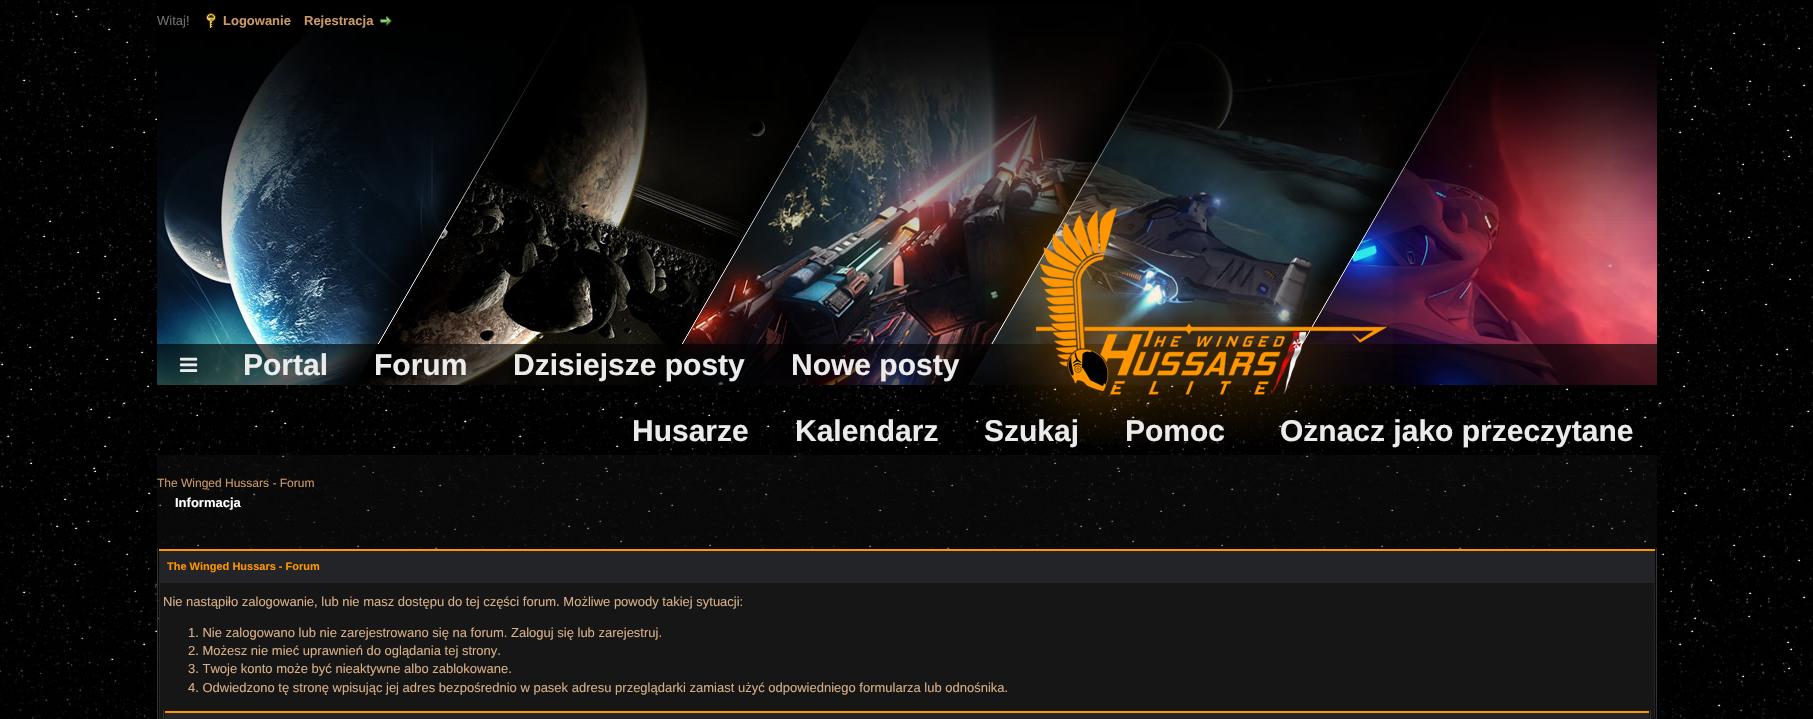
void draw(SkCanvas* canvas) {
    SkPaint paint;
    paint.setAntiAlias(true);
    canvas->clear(0xFFFFFFFF);
    canvas->drawImageRect(SkImages::DeferredFromEncodedData(SkData::MakeFromFileName("img1.png")), SkRect::MakeXYWH(0, 0, 1813, 719), SkSamplingOptions());
    canvas->drawImageRect(SkImages::DeferredFromEncodedData(SkData::MakeFromFileName("img2.png")), SkRect::MakeXYWH(157, 0, 1500, 385), SkSamplingOptions());
    SkFont font1(fontMgr->matchFamilyStyle("Liberation Sans", SkFontStyle::Normal()), 13);
    font1.setSubpixel(true);
    paint.setColor(0xFF707070);
    canvas->drawString("Witaj!", 157, 25, font1, paint);
    canvas->drawImageRect(SkImages::DeferredFromEncodedData(SkData::MakeFromFileName("img3.png")), SkRect::MakeXYWH(206, 13, 10, 15), SkSamplingOptions());
    SkFont font2(fontMgr->matchFamilyStyle("Liberation Sans", SkFontStyle::Bold()), 13);
    font2.setSubpixel(true);
    paint.setColor(0xFFCC9966);
    canvas->drawString("Logowanie", 223, 25, font2, paint);
    canvas->drawString("Rejestracja", 304, 25, font2, paint);
    canvas->drawImageRect(SkImages::DeferredFromEncodedData(SkData::MakeFromFileName("img4.png")), SkRect::MakeXYWH(380, 16, 12, 10), SkSamplingOptions());
    canvas->drawImageRect(SkImages::DeferredFromEncodedData(SkData::MakeFromFileName("img5.png")), SkRect::MakeXYWH(180, 357, 18, 15), SkSamplingOptions());
    SkFont font3(fontMgr->matchFamilyStyle("Liberation Sans", SkFontStyle::Bold()), 30);
    font3.setSubpixel(true);
    paint.setColor(0xFFEBEBEB);
    canvas->drawString("Portal", 243, 375, font3, paint);
    canvas->drawString("Forum", 374, 375, font3, paint);
    canvas->drawString("Dzisiejsze posty", 513, 375, font3, paint);
    canvas->drawString("Nowe posty", 791, 375, font3, paint);
    canvas->drawImageRect(SkImages::DeferredFromEncodedData(SkData::MakeFromFileName("img6.png")), SkRect::MakeXYWH(985, 162, 408, 282), SkSamplingOptions());
    canvas->drawString("Husarze", 632, 441, font3, paint);
    canvas->drawString("Kalendarz", 795, 441, font3, paint);
    canvas->drawString("Szukaj", 984, 441, font3, paint);
    canvas->drawString("Pomoc", 1125, 441, font3, paint);
    canvas->drawString("Oznacz jako przeczytane", 1280, 441, font3, paint);
    paint.setColor(0x800F0F0F);
    canvas->drawRect(SkRect::MakeXYWH(157, 455, 1500, 264), paint);
    SkFont font4(fontMgr->matchFamilyStyle("Liberation Sans", SkFontStyle::Normal()), 12);
    font4.setSubpixel(true);
    paint.setColor(0xFFCC9966);
    canvas->drawString("The Winged Hussars - Forum", 157, 487, font4, paint);
    paint.setColor(0xFFFFFFFF);
    canvas->drawString("Informacja", 175, 507, font2, paint);
    paint.setColor(0xFF333333);
    canvas->drawRect(SkRect::MakeXYWH(1656, 548, 1, 171), paint);
    canvas->drawRect(SkRect::MakeXYWH(157, 548, 1, 171), paint);
    paint.setColor(0xFF222427);
    canvas->drawRect(SkRect::MakeXYWH(159, 551, 1496, 32), paint);
    paint.setColor(0xFFFF9600);
    canvas->drawRect(SkRect::MakeXYWH(159, 549, 1496, 2), paint);
    SkFont font5(fontMgr->matchFamilyStyle("Liberation Sans", SkFontStyle::Bold()), 11);
    font5.setSubpixel(true);
    canvas->drawString("The Winged Hussars - Forum", 167, 570, font5, paint);
    paint.setColor(0xFF161616);
    canvas->drawRect(SkRect::MakeXYWH(160, 583, 1494, 136), paint);
    paint.setColor(0xFF222427);
    canvas->drawRect(SkRect::MakeXYWH(1654, 583, 1, 136), paint);
    canvas->drawRect(SkRect::MakeXYWH(159, 583, 1, 136), paint);
    paint.setColor(0xFFD6AE87);
    canvas->drawString("Nie nastąpiło zalogowanie, lub nie masz dostępu do tej części forum. Możliwe powody takiej sytuacji:", 163, 606, font1, paint);
    canvas->drawString("1. Nie zalogowano lub nie zarejestrowano się na forum. Zaloguj się lub zarejestruj.", 188, 637, font1, paint);
    canvas->drawString("2. Możesz nie mieć uprawnień do oglądania tej strony.", 188, 655, font1, paint);
    canvas->drawString("3. Twoje konto może być nieaktywne albo zablokowane.", 188, 673, font1, paint);
    canvas->drawString("4. Odwiedzono tę stronę wpisując jej adres bezpośrednio w pasek adresu przeglądarki zamiast użyć odpowiedniego formularza lub odnośnika.", 188, 692, font1, paint);
    paint.setColor(0xFF333333);
    canvas->drawRect(SkRect::MakeXYWH(1650, 710, 1, 9), paint);
    canvas->drawRect(SkRect::MakeXYWH(163, 710, 1, 9), paint);
    paint.setColor(0xFF222427);
    canvas->drawRect(SkRect::MakeXYWH(165, 713, 1484, 6), paint);
    paint.setColor(0xFFFF9600);
    canvas->drawRect(SkRect::MakeXYWH(165, 711, 1484, 2), paint);
}
